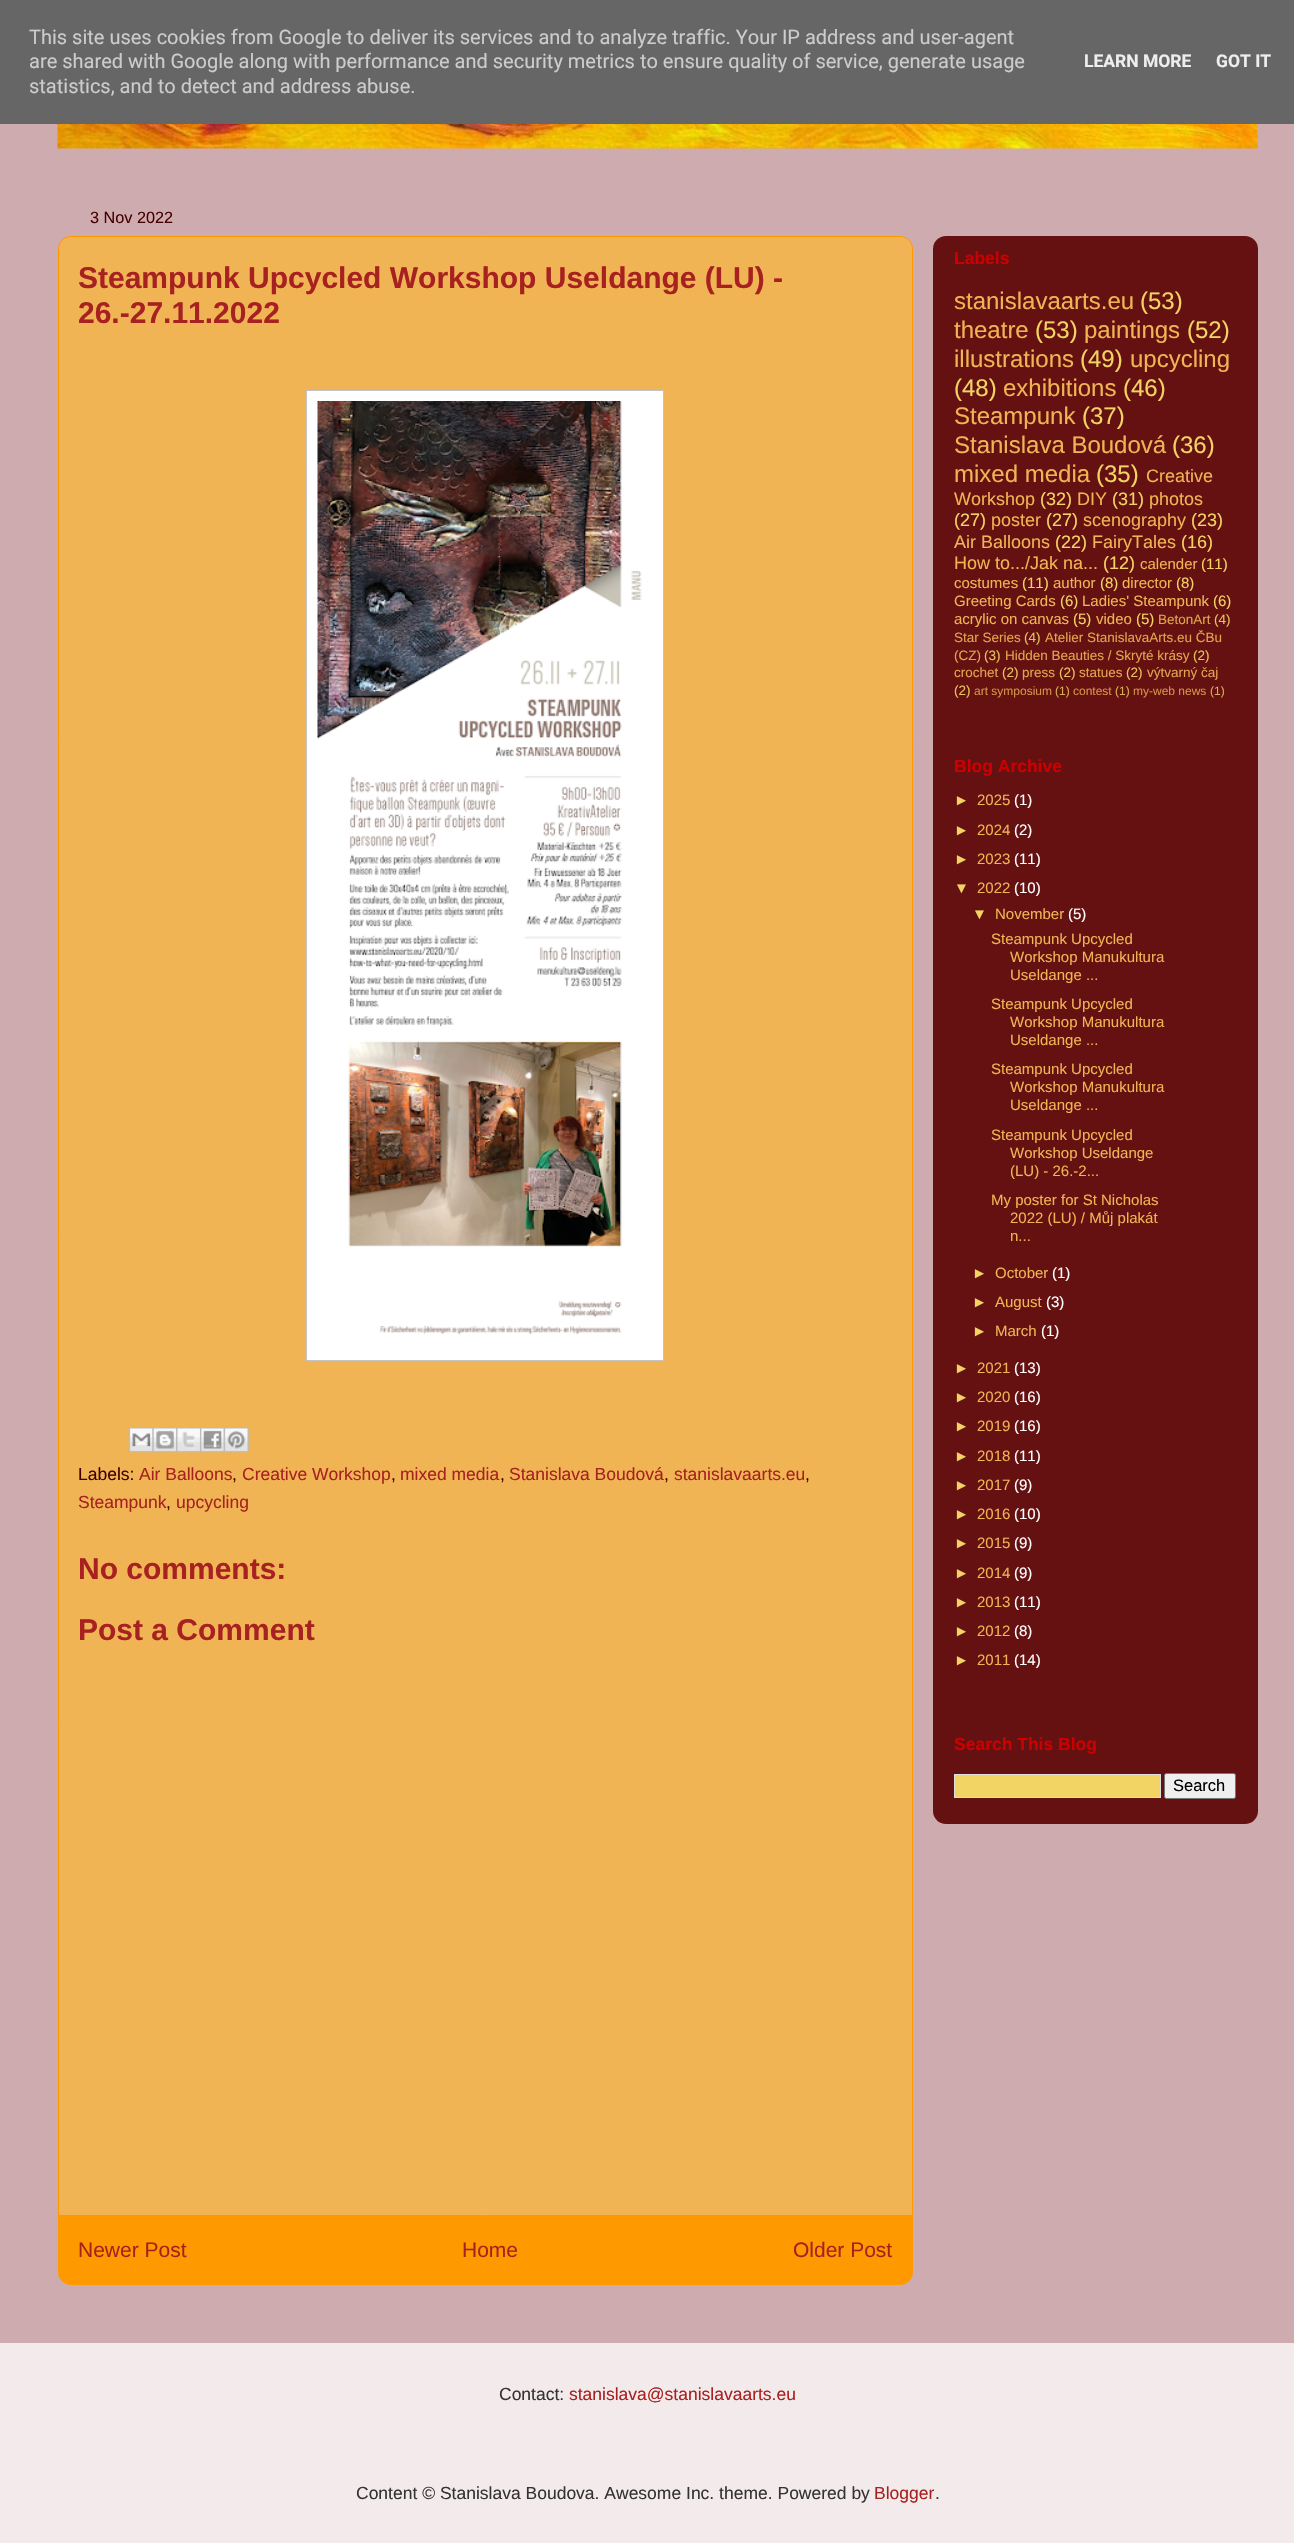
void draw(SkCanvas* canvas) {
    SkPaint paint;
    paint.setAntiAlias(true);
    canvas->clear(0xFFCEABAF);
    paint.setColor(0xFF666666);
    canvas->drawRect(SkRect::MakeXYWH(0, 0, 1294, 124), paint);
    SkFont font1(fontMgr->matchFamilyStyle("Roboto", SkFontStyle::Normal()), 20);
    font1.setSubpixel(true);
    paint.setColor(0xFFCCCCCC);
    canvas->drawString("This site uses cookies from Google to deliver its services and to analyze traffic. Your IP address and user-agent", 29, 44, font1, paint);
    canvas->drawString("are shared with Google along with performance and security metrics to ensure quality of service, generate usage", 29, 68, font1, paint);
    canvas->drawString("statistics, and to detect and address abuse.", 29, 93, font1, paint);
    SkFont font2(fontMgr->matchFamilyStyle("Roboto", SkFontStyle::Bold()), 17.5f);
    font2.setSubpixel(true);
    paint.setColor(0xFFEEEEEE);
    canvas->drawString("LEARN MORE", 1084, 67, font2, paint);
    canvas->drawString("GOT IT", 1216, 67, font2, paint);
    canvas->drawImageRect(SkImages::DeferredFromEncodedData(SkData::MakeFromFileName("img1.png")), SkRect::MakeXYWH(57, 124, 1201, 25), SkSamplingOptions());
    paint.setColor(0xFFF0B454);
    canvas->drawPath(SkPathBuilder().moveTo(71, 236.5f).lineTo(900, 236.5f).cubicTo(907, 236.5f, 912.5f, 242, 912.5f, 249).lineTo(912.5f, 2215.5f).lineTo(58.5f, 2215.5f).lineTo(58.5f, 249).cubicTo(58.5f, 242, 64, 236.5f, 71, 236.5f).close().detach(), paint);
    paint.setStyle(SkPaint::kStroke_Style);
    paint.setStrokeWidth(1);
    paint.setColor(0xFFFF9900);
    canvas->drawPath(SkPathBuilder().moveTo(71, 236.5f).lineTo(900, 236.5f).cubicTo(907, 236.5f, 912.5f, 242, 912.5f, 249).lineTo(912.5f, 2215.5f).lineTo(58.5f, 2215.5f).lineTo(58.5f, 249).cubicTo(58.5f, 242, 64, 236.5f, 71, 236.5f).close().detach(), paint);
    SkFont font3(fontMgr->matchFamilyStyle("Liberation Sans", SkFontStyle::Normal()), 16.25f);
    font3.setSubpixel(true);
    paint.setStyle(SkPaint::kFill_Style);
    paint.setColor(0xFF440000);
    canvas->drawString("3 Nov 2022", 90, 223, font3, paint);
    SkFont font4(fontMgr->matchFamilyStyle("Liberation Sans", SkFontStyle::Bold()), 30);
    font4.setSubpixel(true);
    paint.setColor(0xFFA82121);
    canvas->drawString("Steampunk Upcycled Workshop Useldange (LU) -", 78, 288, font4, paint);
    canvas->drawString("26.-27.11.2022", 78, 323, font4, paint);
    paint.setColor(0xFFFFFFFF);
    canvas->drawRect(SkRect::MakeXYWH(306.5f, 390.5f, 357, 970), paint);
    paint.setStyle(SkPaint::kStroke_Style);
    paint.setColor(0xFFC3C3C3);
    canvas->drawRect(SkRect::MakeXYWH(306.5f, 390.5f, 357, 970), paint);
    canvas->drawImageRect(SkImages::DeferredFromEncodedData(SkData::MakeFromFileName("img2.png")), SkRect::MakeXYWH(317, 401, 325, 934), SkSamplingOptions());
    canvas->drawImageRect(SkImages::DeferredFromEncodedData(SkData::MakeFromFileName("img3.png")), SkRect::MakeXYWH(128, 1427, 26, 26), SkSamplingOptions());
    canvas->drawImageRect(SkImages::DeferredFromEncodedData(SkData::MakeFromFileName("img4.png")), SkRect::MakeXYWH(152, 1427, 26, 26), SkSamplingOptions());
    canvas->drawImageRect(SkImages::DeferredFromEncodedData(SkData::MakeFromFileName("img5.png")), SkRect::MakeXYWH(176, 1427, 26, 26), SkSamplingOptions());
    canvas->drawImageRect(SkImages::DeferredFromEncodedData(SkData::MakeFromFileName("img6.png")), SkRect::MakeXYWH(200, 1427, 25, 26), SkSamplingOptions());
    canvas->drawImageRect(SkImages::DeferredFromEncodedData(SkData::MakeFromFileName("img7.png")), SkRect::MakeXYWH(223, 1427, 26, 26), SkSamplingOptions());
    SkFont font5(fontMgr->matchFamilyStyle("Liberation Sans", SkFontStyle::Normal()), 17.5f);
    font5.setSubpixel(true);
    paint.setStyle(SkPaint::kFill_Style);
    paint.setColor(0xFF440000);
    canvas->drawString("Labels:", 78, 1480, font5, paint);
    paint.setColor(0xFFA82121);
    canvas->drawString("Air Balloons", 139, 1480, font5, paint);
    paint.setColor(0xFF440000);
    canvas->drawString(",", 232, 1480, font5, paint);
    paint.setColor(0xFFA82121);
    canvas->drawString("Creative Workshop", 242, 1480, font5, paint);
    paint.setColor(0xFF440000);
    canvas->drawString(",", 391, 1480, font5, paint);
    paint.setColor(0xFFA82121);
    canvas->drawString("mixed media", 400, 1480, font5, paint);
    paint.setColor(0xFF440000);
    canvas->drawString(",", 500, 1480, font5, paint);
    paint.setColor(0xFFA82121);
    canvas->drawString("Stanislava Boudová", 509, 1480, font5, paint);
    paint.setColor(0xFF440000);
    canvas->drawString(",", 664, 1480, font5, paint);
    paint.setColor(0xFFA82121);
    canvas->drawString("stanislavaarts.eu", 674, 1480, font5, paint);
    paint.setColor(0xFF440000);
    canvas->drawString(",", 805, 1480, font5, paint);
    paint.setColor(0xFFA82121);
    canvas->drawString("Steampunk", 78, 1508, font5, paint);
    paint.setColor(0xFF440000);
    canvas->drawString(",", 166, 1508, font5, paint);
    paint.setColor(0xFFA82121);
    canvas->drawString("upcycling", 176, 1508, font5, paint);
    canvas->drawString("No comments:", 78, 1579, font4, paint);
    canvas->drawString("Post a Comment", 78, 1640, font4, paint);
    paint.setColor(0xFFFF9900);
    canvas->drawPath(SkPathBuilder().moveTo(58, 2216).lineTo(913, 2216).lineTo(913, 2272).cubicTo(913, 2279, 907, 2285, 900, 2285).lineTo(71, 2285).cubicTo(64, 2285, 58, 2279, 58, 2272).close().detach(), paint);
    SkFont font6(fontMgr->matchFamilyStyle("Liberation Sans", SkFontStyle::Normal()), 21);
    font6.setSubpixel(true);
    paint.setColor(0xFFA82121);
    canvas->drawString("Newer Post", 78, 2257, font6, paint);
    canvas->drawString("Home", 462, 2257, font6, paint);
    canvas->drawString("Older Post", 793, 2257, font6, paint);
    paint.setColor(0xFF661111);
    canvas->drawRoundRect(SkRect::MakeXYWH(933, 236, 325, 1588), 13, 13, paint);
    SkFont font7(fontMgr->matchFamilyStyle("Liberation Sans", SkFontStyle::Bold()), 17.5f);
    font7.setSubpixel(true);
    paint.setColor(0xFFCC0000);
    canvas->drawString("Labels", 954, 264, font7, paint);
    SkFont font8(fontMgr->matchFamilyStyle("Liberation Sans", SkFontStyle::Normal()), 24);
    font8.setSubpixel(true);
    paint.setColor(0xFFF0B454);
    canvas->drawString("stanislavaarts.eu", 954, 309, font8, paint);
    paint.setColor(0xFFF2D464);
    canvas->drawString("(53)", 1140, 309, font8, paint);
    paint.setColor(0xFFF0B454);
    canvas->drawString("theatre", 954, 338, font8, paint);
    paint.setColor(0xFFF2D464);
    canvas->drawString("(53)", 1035, 338, font8, paint);
    paint.setColor(0xFFF0B454);
    canvas->drawString("paintings", 1084, 338, font8, paint);
    paint.setColor(0xFFF2D464);
    canvas->drawString("(52)", 1187, 338, font8, paint);
    paint.setColor(0xFFF0B454);
    canvas->drawString("illustrations", 954, 367, font8, paint);
    paint.setColor(0xFFF2D464);
    canvas->drawString("(49)", 1080, 367, font8, paint);
    paint.setColor(0xFFF0B454);
    canvas->drawString("upcycling", 1130, 367, font8, paint);
    paint.setColor(0xFFF2D464);
    canvas->drawString("(48)", 954, 396, font8, paint);
    paint.setColor(0xFFF0B454);
    canvas->drawString("exhibitions", 1003, 396, font8, paint);
    paint.setColor(0xFFF2D464);
    canvas->drawString("(46)", 1123, 396, font8, paint);
    paint.setColor(0xFFF0B454);
    canvas->drawString("Steampunk", 954, 424, font8, paint);
    paint.setColor(0xFFF2D464);
    canvas->drawString("(37)", 1082, 424, font8, paint);
    paint.setColor(0xFFF0B454);
    canvas->drawString("Stanislava Boudová", 954, 453, font8, paint);
    paint.setColor(0xFFF2D464);
    canvas->drawString("(36)", 1172, 453, font8, paint);
    paint.setColor(0xFFF0B454);
    canvas->drawString("mixed media", 954, 482, font8, paint);
    paint.setColor(0xFFF2D464);
    canvas->drawString("(35)", 1096, 482, font8, paint);
    SkFont font9(fontMgr->matchFamilyStyle("Liberation Sans", SkFontStyle::Normal()), 18);
    font9.setSubpixel(true);
    paint.setColor(0xFFF0B454);
    canvas->drawString("Creative", 1146, 482, font9, paint);
    canvas->drawString("Workshop", 954, 505, font9, paint);
    paint.setColor(0xFFF2D464);
    canvas->drawString("(32)", 1040, 505, font9, paint);
    paint.setColor(0xFFF0B454);
    canvas->drawString("DIY", 1077, 505, font9, paint);
    paint.setColor(0xFFF2D464);
    canvas->drawString("(31)", 1112, 505, font9, paint);
    paint.setColor(0xFFF0B454);
    canvas->drawString("photos", 1149, 505, font9, paint);
    paint.setColor(0xFFF2D464);
    canvas->drawString("(27)", 954, 526, font9, paint);
    paint.setColor(0xFFF0B454);
    canvas->drawString("poster", 991, 526, font9, paint);
    paint.setColor(0xFFF2D464);
    canvas->drawString("(27)", 1046, 526, font9, paint);
    paint.setColor(0xFFF0B454);
    canvas->drawString("scenography", 1083, 526, font9, paint);
    paint.setColor(0xFFF2D464);
    canvas->drawString("(23)", 1191, 526, font9, paint);
    paint.setColor(0xFFF0B454);
    canvas->drawString("Air Balloons", 954, 548, font9, paint);
    paint.setColor(0xFFF2D464);
    canvas->drawString("(22)", 1055, 548, font9, paint);
    paint.setColor(0xFFF0B454);
    canvas->drawString("FairyTales", 1092, 548, font9, paint);
    paint.setColor(0xFFF2D464);
    canvas->drawString("(16)", 1181, 548, font9, paint);
    paint.setColor(0xFFF0B454);
    canvas->drawString("How to.../Jak na...", 954, 569, font9, paint);
    paint.setColor(0xFFF2D464);
    canvas->drawString("(12)", 1103, 569, font9, paint);
    SkFont font10(fontMgr->matchFamilyStyle("Liberation Sans", SkFontStyle::Normal()), 15);
    font10.setSubpixel(true);
    paint.setColor(0xFFF0B454);
    canvas->drawString("calender", 1140, 569, font10, paint);
    paint.setColor(0xFFF2D464);
    canvas->drawString("(11)", 1201, 569, font10, paint);
    paint.setColor(0xFFF0B454);
    canvas->drawString("costumes", 954, 588, font10, paint);
    paint.setColor(0xFFF2D464);
    canvas->drawString("(11)", 1022, 588, font10, paint);
    paint.setColor(0xFFF0B454);
    canvas->drawString("author", 1053, 588, font10, paint);
    paint.setColor(0xFFF2D464);
    canvas->drawString("(8)", 1100, 588, font10, paint);
    paint.setColor(0xFFF0B454);
    canvas->drawString("director", 1122, 588, font10, paint);
    paint.setColor(0xFFF2D464);
    canvas->drawString("(8)", 1176, 588, font10, paint);
    paint.setColor(0xFFF0B454);
    canvas->drawString("Greeting Cards", 954, 606, font10, paint);
    paint.setColor(0xFFF2D464);
    canvas->drawString("(6)", 1060, 606, font10, paint);
    paint.setColor(0xFFF0B454);
    canvas->drawString("Ladies' Steampunk", 1082, 606, font10, paint);
    paint.setColor(0xFFF2D464);
    canvas->drawString("(6)", 1213, 606, font10, paint);
    paint.setColor(0xFFF0B454);
    canvas->drawString("acrylic on canvas", 954, 624, font10, paint);
    paint.setColor(0xFFF2D464);
    canvas->drawString("(5)", 1073, 624, font10, paint);
    paint.setColor(0xFFF0B454);
    canvas->drawString("video", 1096, 624, font10, paint);
    paint.setColor(0xFFF2D464);
    canvas->drawString("(5)", 1136, 624, font10, paint);
    SkFont font11(fontMgr->matchFamilyStyle("Liberation Sans", SkFontStyle::Normal()), 13.5f);
    font11.setSubpixel(true);
    paint.setColor(0xFFE2A44D);
    canvas->drawString("BetonArt", 1158, 624, font11, paint);
    paint.setColor(0xFFE4C15C);
    canvas->drawString("(4)", 1214, 624, font11, paint);
    paint.setColor(0xFFE2A44D);
    canvas->drawString("Star Series", 954, 642, font11, paint);
    paint.setColor(0xFFE4C15C);
    canvas->drawString("(4)", 1024, 642, font11, paint);
    paint.setColor(0xFFE2A44D);
    canvas->drawString("Atelier StanislavaArts.eu ČBu", 1045, 642, font11, paint);
    canvas->drawString("(CZ)", 954, 660, font11, paint);
    paint.setColor(0xFFE4C15C);
    canvas->drawString("(3)", 984, 660, font11, paint);
    paint.setColor(0xFFE2A44D);
    canvas->drawString("Hidden Beauties / Skryté krásy", 1005, 660, font11, paint);
    paint.setColor(0xFFE4C15C);
    canvas->drawString("(2)", 1193, 660, font11, paint);
    paint.setColor(0xFFE2A44D);
    canvas->drawString("crochet", 954, 677, font11, paint);
    paint.setColor(0xFFE4C15C);
    canvas->drawString("(2)", 1002, 677, font11, paint);
    paint.setColor(0xFFE2A44D);
    canvas->drawString("press", 1022, 677, font11, paint);
    paint.setColor(0xFFE4C15C);
    canvas->drawString("(2)", 1059, 677, font11, paint);
    paint.setColor(0xFFE2A44D);
    canvas->drawString("statues", 1079, 677, font11, paint);
    paint.setColor(0xFFE4C15C);
    canvas->drawString("(2)", 1126, 677, font11, paint);
    paint.setColor(0xFFE2A44D);
    canvas->drawString("výtvarný čaj", 1147, 677, font11, paint);
    paint.setColor(0xFFE4C15C);
    canvas->drawString("(2)", 954, 695, font11, paint);
    SkFont font12(fontMgr->matchFamilyStyle("Liberation Sans", SkFontStyle::Normal()), 12);
    font12.setSubpixel(true);
    paint.setColor(0xFFD49347);
    canvas->drawString("art symposium", 974, 695, font12, paint);
    paint.setColor(0xFFD6AD53);
    canvas->drawString("(1)", 1055, 695, font12, paint);
    paint.setColor(0xFFD49347);
    canvas->drawString("contest", 1073, 695, font12, paint);
    paint.setColor(0xFFD6AD53);
    canvas->drawString("(1)", 1115, 695, font12, paint);
    paint.setColor(0xFFD49347);
    canvas->drawString("my-web news", 1133, 695, font12, paint);
    paint.setColor(0xFFD6AD53);
    canvas->drawString("(1)", 1210, 695, font12, paint);
    paint.setColor(0xFFCC0000);
    canvas->drawString("Blog Archive", 954, 772, font7, paint);
    paint.setColor(0xFFF2D464);
    canvas->drawString("►", 954, 805, font10, paint);
    paint.setColor(0xFFF0B454);
    canvas->drawString("2025", 977, 805, font10, paint);
    paint.setColor(0xFFFFFFFF);
    canvas->drawString("(1)", 1014, 805, font10, paint);
    paint.setColor(0xFFF2D464);
    canvas->drawString("►", 954, 835, font10, paint);
    paint.setColor(0xFFF0B454);
    canvas->drawString("2024", 977, 835, font10, paint);
    paint.setColor(0xFFFFFFFF);
    canvas->drawString("(2)", 1014, 835, font10, paint);
    paint.setColor(0xFFF2D464);
    canvas->drawString("►", 954, 864, font10, paint);
    paint.setColor(0xFFF0B454);
    canvas->drawString("2023", 977, 864, font10, paint);
    paint.setColor(0xFFFFFFFF);
    canvas->drawString("(11)", 1014, 864, font10, paint);
    paint.setColor(0xFFF2D464);
    canvas->drawString("▼", 954, 893, font10, paint);
    paint.setColor(0xFFF0B454);
    canvas->drawString("2022", 977, 893, font10, paint);
    paint.setColor(0xFFFFFFFF);
    canvas->drawString("(10)", 1014, 893, font10, paint);
    paint.setColor(0xFFF2D464);
    canvas->drawString("▼", 972, 919, font10, paint);
    paint.setColor(0xFFF0B454);
    canvas->drawString("November", 995, 919, font10, paint);
    paint.setColor(0xFFFFFFFF);
    canvas->drawString("(5)", 1068, 919, font10, paint);
    paint.setColor(0xFFF0B454);
    canvas->drawString("Steampunk Upcycled", 991, 944, font10, paint);
    canvas->drawString("Workshop Manukultura", 1010, 962, font10, paint);
    canvas->drawString("Useldange ...", 1010, 980, font10, paint);
    canvas->drawString("Steampunk Upcycled", 991, 1009, font10, paint);
    canvas->drawString("Workshop Manukultura", 1010, 1027, font10, paint);
    canvas->drawString("Useldange ...", 1010, 1045, font10, paint);
    canvas->drawString("Steampunk Upcycled", 991, 1074, font10, paint);
    canvas->drawString("Workshop Manukultura", 1010, 1092, font10, paint);
    canvas->drawString("Useldange ...", 1010, 1110, font10, paint);
    canvas->drawString("Steampunk Upcycled", 991, 1140, font10, paint);
    canvas->drawString("Workshop Useldange", 1010, 1158, font10, paint);
    canvas->drawString("(LU) - 26.-2...", 1010, 1176, font10, paint);
    canvas->drawString("My poster for St Nicholas", 991, 1205, font10, paint);
    canvas->drawString("2022 (LU) / Můj plakát", 1010, 1223, font10, paint);
    canvas->drawString("n...", 1010, 1241, font10, paint);
    paint.setColor(0xFFF2D464);
    canvas->drawString("►", 972, 1278, font10, paint);
    paint.setColor(0xFFF0B454);
    canvas->drawString("October", 995, 1278, font10, paint);
    paint.setColor(0xFFFFFFFF);
    canvas->drawString("(1)", 1052, 1278, font10, paint);
    paint.setColor(0xFFF2D464);
    canvas->drawString("►", 972, 1307, font10, paint);
    paint.setColor(0xFFF0B454);
    canvas->drawString("August", 995, 1307, font10, paint);
    paint.setColor(0xFFFFFFFF);
    canvas->drawString("(3)", 1046, 1307, font10, paint);
    paint.setColor(0xFFF2D464);
    canvas->drawString("►", 972, 1336, font10, paint);
    paint.setColor(0xFFF0B454);
    canvas->drawString("March", 995, 1336, font10, paint);
    paint.setColor(0xFFFFFFFF);
    canvas->drawString("(1)", 1041, 1336, font10, paint);
    paint.setColor(0xFFF2D464);
    canvas->drawString("►", 954, 1373, font10, paint);
    paint.setColor(0xFFF0B454);
    canvas->drawString("2021", 977, 1373, font10, paint);
    paint.setColor(0xFFFFFFFF);
    canvas->drawString("(13)", 1014, 1373, font10, paint);
    paint.setColor(0xFFF2D464);
    canvas->drawString("►", 954, 1402, font10, paint);
    paint.setColor(0xFFF0B454);
    canvas->drawString("2020", 977, 1402, font10, paint);
    paint.setColor(0xFFFFFFFF);
    canvas->drawString("(16)", 1014, 1402, font10, paint);
    paint.setColor(0xFFF2D464);
    canvas->drawString("►", 954, 1431, font10, paint);
    paint.setColor(0xFFF0B454);
    canvas->drawString("2019", 977, 1431, font10, paint);
    paint.setColor(0xFFFFFFFF);
    canvas->drawString("(16)", 1014, 1431, font10, paint);
    paint.setColor(0xFFF2D464);
    canvas->drawString("►", 954, 1461, font10, paint);
    paint.setColor(0xFFF0B454);
    canvas->drawString("2018", 977, 1461, font10, paint);
    paint.setColor(0xFFFFFFFF);
    canvas->drawString("(11)", 1014, 1461, font10, paint);
    paint.setColor(0xFFF2D464);
    canvas->drawString("►", 954, 1490, font10, paint);
    paint.setColor(0xFFF0B454);
    canvas->drawString("2017", 977, 1490, font10, paint);
    paint.setColor(0xFFFFFFFF);
    canvas->drawString("(9)", 1014, 1490, font10, paint);
    paint.setColor(0xFFF2D464);
    canvas->drawString("►", 954, 1519, font10, paint);
    paint.setColor(0xFFF0B454);
    canvas->drawString("2016", 977, 1519, font10, paint);
    paint.setColor(0xFFFFFFFF);
    canvas->drawString("(10)", 1014, 1519, font10, paint);
    paint.setColor(0xFFF2D464);
    canvas->drawString("►", 954, 1548, font10, paint);
    paint.setColor(0xFFF0B454);
    canvas->drawString("2015", 977, 1548, font10, paint);
    paint.setColor(0xFFFFFFFF);
    canvas->drawString("(9)", 1014, 1548, font10, paint);
    paint.setColor(0xFFF2D464);
    canvas->drawString("►", 954, 1578, font10, paint);
    paint.setColor(0xFFF0B454);
    canvas->drawString("2014", 977, 1578, font10, paint);
    paint.setColor(0xFFFFFFFF);
    canvas->drawString("(9)", 1014, 1578, font10, paint);
    paint.setColor(0xFFF2D464);
    canvas->drawString("►", 954, 1607, font10, paint);
    paint.setColor(0xFFF0B454);
    canvas->drawString("2013", 977, 1607, font10, paint);
    paint.setColor(0xFFFFFFFF);
    canvas->drawString("(11)", 1014, 1607, font10, paint);
    paint.setColor(0xFFF2D464);
    canvas->drawString("►", 954, 1636, font10, paint);
    paint.setColor(0xFFF0B454);
    canvas->drawString("2012", 977, 1636, font10, paint);
    paint.setColor(0xFFFFFFFF);
    canvas->drawString("(8)", 1014, 1636, font10, paint);
    paint.setColor(0xFFF2D464);
    canvas->drawString("►", 954, 1665, font10, paint);
    paint.setColor(0xFFF0B454);
    canvas->drawString("2011", 977, 1665, font10, paint);
    paint.setColor(0xFFFFFFFF);
    canvas->drawString("(14)", 1014, 1665, font10, paint);
    paint.setColor(0xFFCC0000);
    canvas->drawString("Search This Blog", 954, 1750, font7, paint);
    paint.setColor(0xFFF2D464);
    canvas->drawRect(SkRect::MakeXYWH(954.5f, 1774.5f, 206, 23), paint);
    paint.setStyle(SkPaint::kStroke_Style);
    paint.setColor(0xFFDDDDDD);
    canvas->drawRect(SkRect::MakeXYWH(954.5f, 1774.5f, 206, 23), paint);
    paint.setStyle(SkPaint::kFill_Style);
    paint.setColor(0xFFEFEFEF);
    canvas->drawRoundRect(SkRect::MakeXYWH(1164.5f, 1773.5f, 71, 25), 2, 2, paint);
    paint.setStyle(SkPaint::kStroke_Style);
    paint.setColor(0xFF767676);
    canvas->drawRoundRect(SkRect::MakeXYWH(1164.5f, 1773.5f, 71, 25), 2, 2, paint);
    SkFont font13(fontMgr->matchFamilyStyle("Liberation Sans", SkFontStyle::Normal()), 16.5f);
    font13.setSubpixel(true);
    paint.setStyle(SkPaint::kFill_Style);
    paint.setColor(0xFF000000);
    canvas->drawString("Search", 1173, 1791, font13, paint);
    paint.setColor(0xFFF3EAEB);
    canvas->drawRect(SkRect::MakeXYWH(0, 2343, 1294, 200), paint);
    paint.setColor(0xFF333333);
    canvas->drawString("Contact:", 499, 2400, font5, paint);
    paint.setColor(0xFFA82121);
    canvas->drawString("stanislava@stanislavaarts.eu", 569, 2400, font5, paint);
    paint.setColor(0xFF333333);
    canvas->drawString("Content © Stanislava Boudova. Awesome Inc. theme. Powered by", 356, 2499, font5, paint);
    paint.setColor(0xFFA82121);
    canvas->drawString("Blogger", 874, 2499, font5, paint);
    paint.setColor(0xFF333333);
    canvas->drawString(".", 935, 2499, font5, paint);
}
